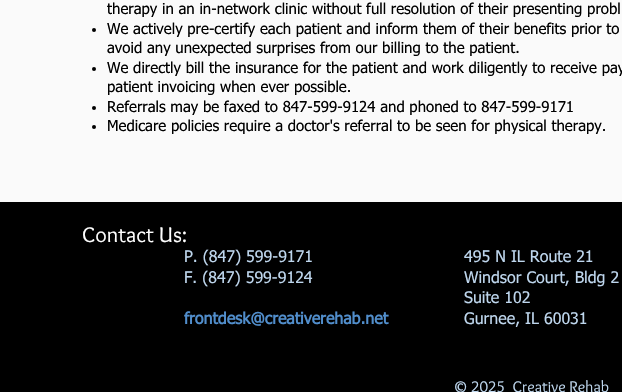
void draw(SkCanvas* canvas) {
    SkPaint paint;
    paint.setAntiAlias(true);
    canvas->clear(0xFFFAFAFA);
    SkFont font1(fontMgr->matchFamilyStyle("tahoma", SkFontStyle::Normal()), 15);
    font1.setSubpixel(true);
    paint.setColor(0xFF000000);
    canvas->drawString("therapy in an in-network clinic without full resolution of their presenting probl", 107, 14, font1, paint);
    canvas->drawCircle(94, 30, 2, paint);
    canvas->drawString("We actively pre-certify each patient and inform them of their benefits prior to", 107, 34, font1, paint);
    canvas->drawString("avoid any unexpected surprises from our billing to the patient.", 107, 53, font1, paint);
    canvas->drawCircle(94, 69, 2, paint);
    canvas->drawString("We directly bill the insurance for the patient and work diligently to receive pay", 107, 73, font1, paint);
    canvas->drawString("patient invoicing when ever possible.", 107, 92, font1, paint);
    canvas->drawCircle(94, 108, 2, paint);
    canvas->drawString("Referrals may be faxed to 847-599-9124 and phoned to 847-599-9171", 107, 112, font1, paint);
    canvas->drawCircle(94, 127, 2, paint);
    canvas->drawString("Medicare policies require a doctor's referral to be seen for physical therapy.", 107, 131, font1, paint);
    canvas->drawRect(SkRect::MakeXYWH(0, 202, 622, 190), paint);
    SkFont font2(fontMgr->matchFamilyStyle("Overlock", SkFontStyle::Normal()), 22);
    font2.setSubpixel(true);
    paint.setColor(0xFFFFFFFF);
    canvas->drawString("Contact Us:", 82, 242, font2, paint);
    SkFont font3(fontMgr->matchFamilyStyle("tahoma", SkFontStyle::Normal()), 16);
    font3.setSubpixel(true);
    paint.setColor(0xFFBED6ED);
    canvas->drawString("P. (847) 599-9171", 184, 262, font3, paint);
    canvas->drawString("F. (847) 599-9124", 184, 283, font3, paint);
    SkFont font4(fontMgr->matchFamilyStyle("tahoma", SkFontStyle::Bold()), 16);
    font4.setSubpixel(true);
    paint.setColor(0xFF518ECC);
    canvas->drawString("frontdesk@creativerehab.net", 184, 324, font4, paint);
    paint.setColor(0xFFBED6ED);
    canvas->drawString("495 N IL Route 21", 464, 262, font3, paint);
    canvas->drawString("Windsor Court, Bldg 2", 464, 283, font3, paint);
    canvas->drawString("Suite 102", 464, 303, font3, paint);
    canvas->drawString("Gurnee, IL 60031", 464, 324, font3, paint);
    SkFont font5(fontMgr->matchFamilyStyle("Overlock", SkFontStyle::Normal()), 16);
    font5.setSubpixel(true);
    canvas->drawString("© 2025  Creative Rehab", 453, 392, font5, paint);
}
